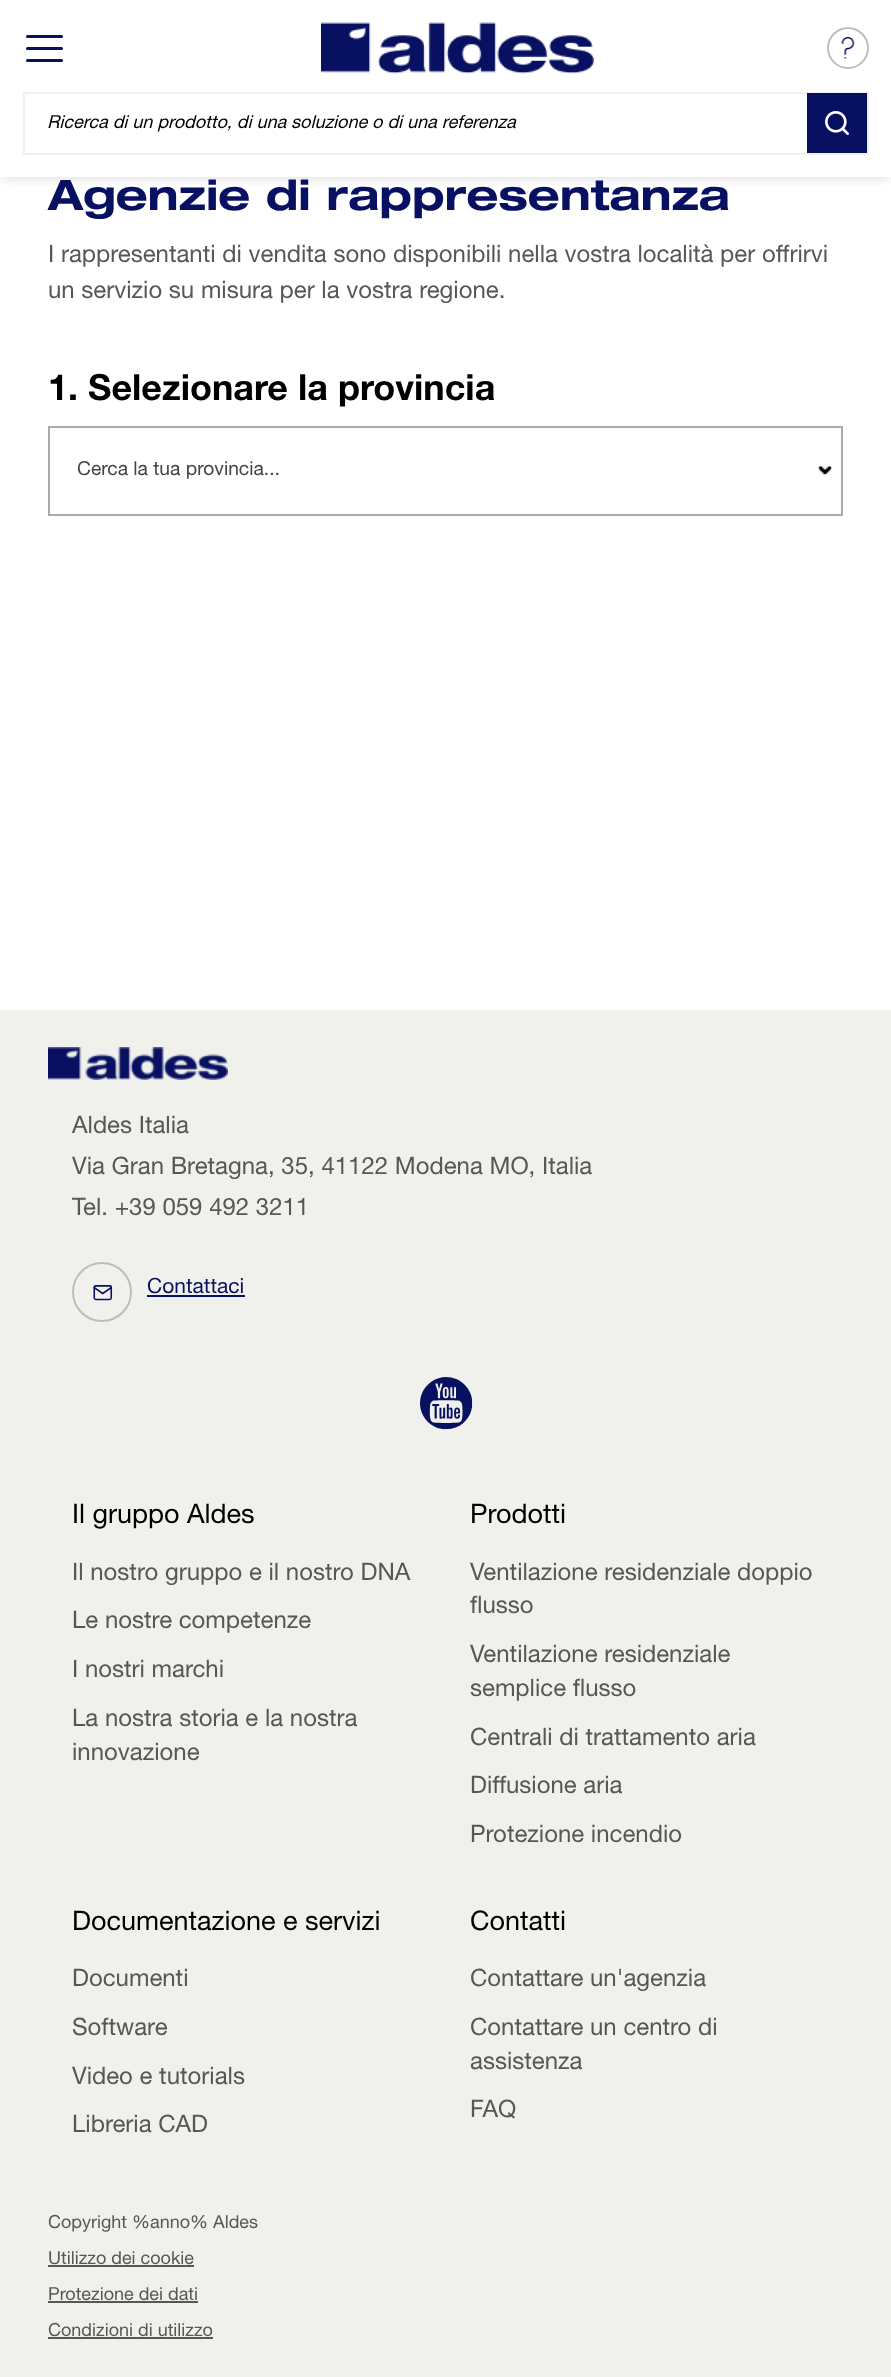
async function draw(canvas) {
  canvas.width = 891;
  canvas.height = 2377;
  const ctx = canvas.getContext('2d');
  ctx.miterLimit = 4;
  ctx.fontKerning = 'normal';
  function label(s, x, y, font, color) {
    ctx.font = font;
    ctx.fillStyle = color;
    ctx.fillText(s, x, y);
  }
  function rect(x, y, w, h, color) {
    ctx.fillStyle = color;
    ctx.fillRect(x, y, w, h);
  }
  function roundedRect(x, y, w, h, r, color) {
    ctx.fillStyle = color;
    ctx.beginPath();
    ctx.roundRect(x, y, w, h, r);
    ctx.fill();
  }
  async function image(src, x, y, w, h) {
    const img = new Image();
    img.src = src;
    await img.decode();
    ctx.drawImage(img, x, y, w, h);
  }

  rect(0, 0, 891, 2377, '#fff');
  ctx.save();
  ctx.beginPath();
  ctx.rect(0, 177, 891, 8);
  ctx.clip();
  ctx.fillStyle = '#00000026';
  ctx.filter = 'blur(7px)';
  ctx.beginPath();
  ctx.rect(0, 0, 891, 177);
  ctx.fill();
  ctx.filter = 'none';
  ctx.restore();
  roundedRect(26, 35, 37, 3, 1.5, '#081061');
  roundedRect(26, 47, 37, 3, 1.5, '#081061');
  roundedRect(26, 59, 37, 3, 1.5, '#081061');
  await image('assets/img1.png', 321, 22, 273, 52);
  ctx.beginPath();
  ctx.arc(848, 48, 20, 0, 2 * Math.PI);
  ctx.strokeStyle = '#bdbdbd';
  ctx.lineWidth = 2;
  ctx.stroke();
  await image('assets/img2.png', 841, 37, 14, 22);
  ctx.strokeStyle = '#f0f0ed';
  ctx.strokeRect(24, 93, 844, 61);
  label('Ricerca di un prodotto, di una soluzione o di una referenza', 47, 128, 'italic 18px Helvetica Neue', '#000');
  rect(807, 93, 60, 60, '#081061');
  await image('assets/img3.png', 825, 111, 24, 24);
  label('Agenzie di rappresentanza', 48, 210, 'bold 42px Helvetica Neue', '#081061');
  label('I rappresentanti di vendita sono disponibili nella vostra località per offrirvi', 48, 262, '24px Helvetica Neue', '#575756');
  label('un servizio su misura per la vostra regione.', 48, 298, '24px Helvetica Neue', '#575756');
  label('1. Selezionare la provincia', 48, 400, 'bold 36px "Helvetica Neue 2"', '#000');
  ctx.strokeStyle = '#aaa';
  ctx.strokeRect(49, 427, 793, 88);
  label('Cerca la tua provincia...', 77, 475, '19.25px Helvetica Neue', '#444');
  await image('assets/img4.png', 818, 466, 14, 9);
  rect(0, 1010, 891, 1367, '#f0f0ed');
  await image('assets/img5.png', 48, 1047, 180, 33);
  label('Aldes Italia', 72, 1133, '24px Helvetica Neue', '#575756');
  label('Via Gran Bretagna, 35, 41122 Modena MO, Italia', 72, 1174, '24px Helvetica Neue', '#575756');
  label('Tel. +39 059 492 3211', 72, 1215, '24px Helvetica Neue', '#575756');
  ctx.beginPath();
  ctx.arc(102, 1292, 29, 0, 2 * Math.PI);
  ctx.strokeStyle = '#bdbdbd';
  ctx.stroke();
  await image('assets/img6.png', 93, 1285, 20, 16);
  label('Contattaci', 147, 1293, '21px Helvetica Neue', '#081061');
  rect(147, 1295, 98, 2, '#081061');
  await image('assets/img7.png', 420, 1377, 53, 53);
  label('Il gruppo Aldes', 72, 1523, '27px Helvetica Neue', '#000');
  label('Il nostro gruppo e il nostro DNA', 72, 1580, '24px Helvetica Neue', '#575756');
  label('Le nostre competenze', 72, 1628, '24px Helvetica Neue', '#575756');
  label('I nostri marchi', 72, 1677, '24px Helvetica Neue', '#575756');
  label('La nostra storia e la nostra', 72, 1726, '24px Helvetica Neue', '#575756');
  label('innovazione', 72, 1760, '24px Helvetica Neue', '#575756');
  label('Prodotti', 470, 1523, '27px Helvetica Neue', '#000');
  label('Ventilazione residenziale doppio', 470, 1580, '24px Helvetica Neue', '#575756');
  label('flusso', 470, 1613, '24px Helvetica Neue', '#575756');
  label('Ventilazione residenziale', 470, 1662, '24px Helvetica Neue', '#575756');
  label('semplice flusso', 470, 1696, '24px Helvetica Neue', '#575756');
  label('Centrali di trattamento aria', 470, 1745, '24px Helvetica Neue', '#575756');
  label('Diffusione aria', 470, 1793, '24px Helvetica Neue', '#575756');
  label('Protezione incendio', 470, 1842, '24px Helvetica Neue', '#575756');
  label('Documentazione e servizi', 72, 1930, '27px Helvetica Neue', '#000');
  label('Documenti', 72, 1986, '24px Helvetica Neue', '#575756');
  label('Software', 72, 2035, '24px Helvetica Neue', '#575756');
  label('Video e tutorials', 72, 2084, '24px Helvetica Neue', '#575756');
  label('Libreria CAD', 72, 2132, '24px Helvetica Neue', '#575756');
  label('Contatti', 470, 1930, '27px Helvetica Neue', '#000');
  label('Contattare un\'agenzia', 470, 1986, '24px Helvetica Neue', '#575756');
  label('Contattare un centro di', 470, 2035, '24px Helvetica Neue', '#575756');
  label('assistenza', 470, 2069, '24px Helvetica Neue', '#575756');
  label('FAQ', 470, 2117, '24px Helvetica Neue', '#575756');
  label('Copyright %anno% Aldes', 48, 2228, '18px Helvetica Neue', '#575756');
  label('Utilizzo dei cookie', 48, 2264, '18px Helvetica Neue', '#575756');
  rect(48, 2265, 146, 2, '#575756');
  label('Protezione dei dati', 48, 2300, '18px Helvetica Neue', '#575756');
  rect(48, 2301, 150, 2, '#575756');
  label('Condizioni di utilizzo', 48, 2336, '18px Helvetica Neue', '#575756');
  rect(48, 2337, 165, 2, '#575756');
}

draw(document.querySelector('canvas'));
